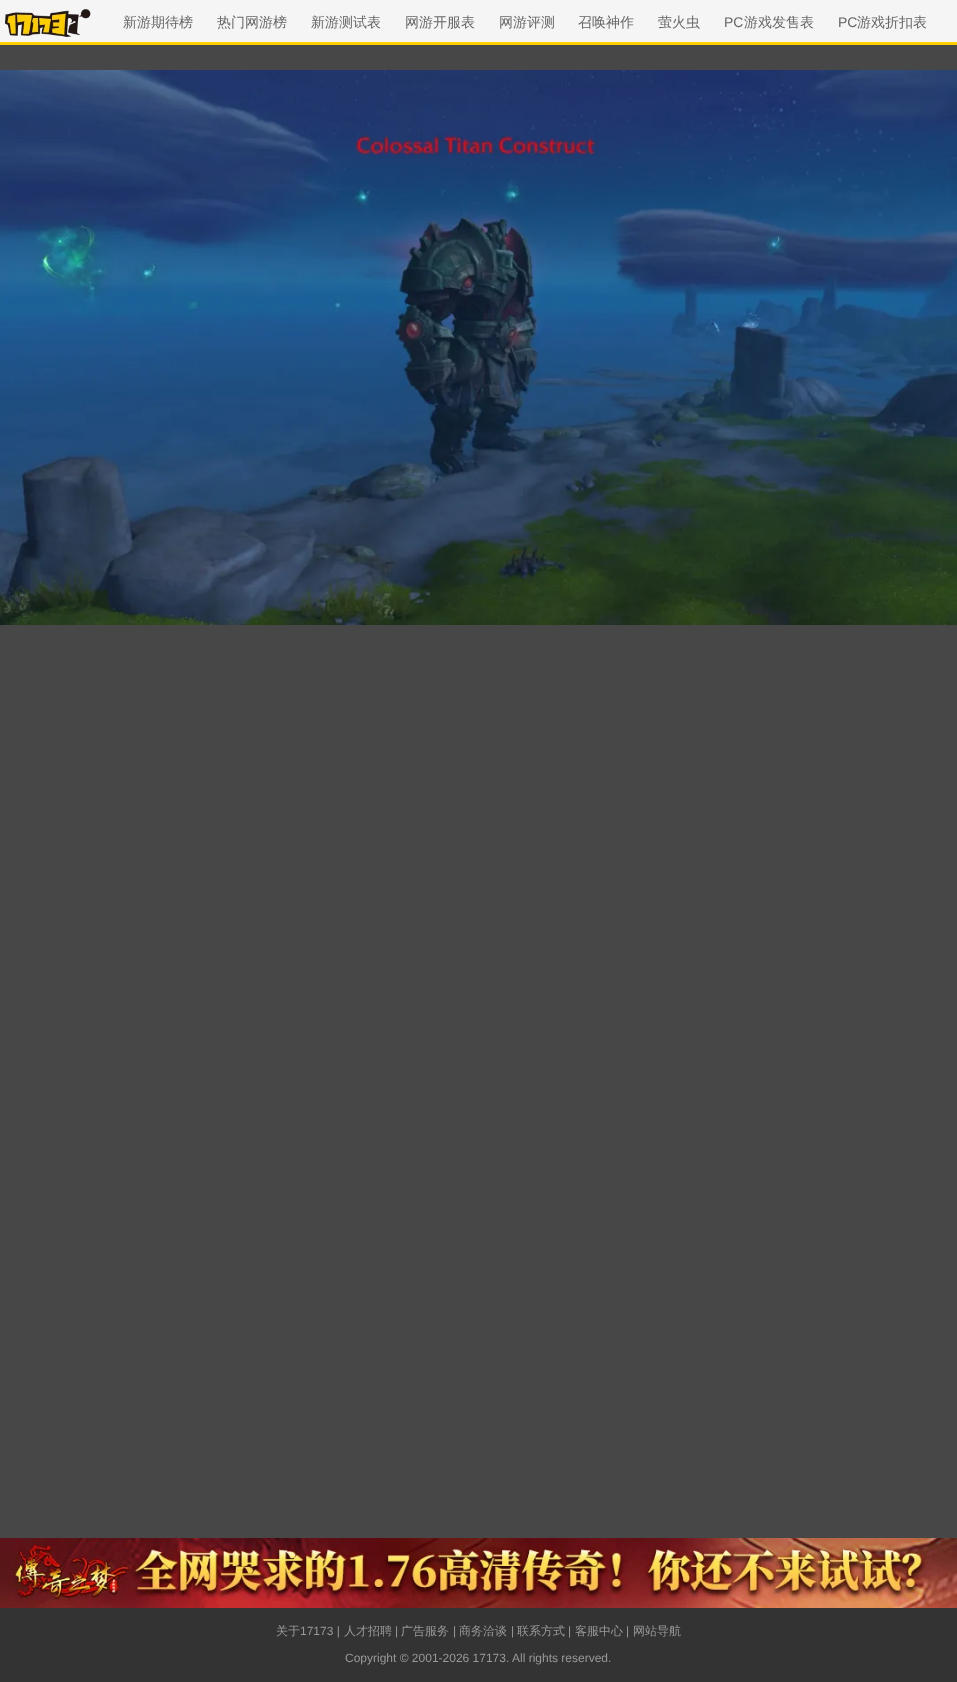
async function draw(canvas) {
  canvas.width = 957;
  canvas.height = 1682;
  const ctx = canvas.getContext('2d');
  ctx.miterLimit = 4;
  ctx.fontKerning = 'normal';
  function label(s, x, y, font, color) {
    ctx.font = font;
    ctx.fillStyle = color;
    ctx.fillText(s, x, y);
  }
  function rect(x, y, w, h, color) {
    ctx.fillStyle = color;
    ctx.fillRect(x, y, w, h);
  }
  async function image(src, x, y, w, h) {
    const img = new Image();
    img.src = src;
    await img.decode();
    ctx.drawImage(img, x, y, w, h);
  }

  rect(0, 0, 957, 1682, '#474747');
  rect(0, 0, 957, 42, '#f5f5f5');
  rect(0, 42, 957, 3, '#ffcd00');
  await image('assets/img1.png', 5, 9, 86, 28);
  label('新游期待榜', 123, 27, '500 14px WenQuanYi Zen Hei', '#666');
  label('热门网游榜', 217, 27, '500 14px WenQuanYi Zen Hei', '#666');
  label('新游测试表', 311, 27, '500 14px WenQuanYi Zen Hei', '#666');
  label('网游开服表', 405, 27, '500 14px WenQuanYi Zen Hei', '#666');
  label('网游评测', 499, 27, '500 14px WenQuanYi Zen Hei', '#666');
  label('召唤神作', 578, 27, '500 14px WenQuanYi Zen Hei', '#666');
  label('萤火虫', 658, 27, '500 14px WenQuanYi Zen Hei', '#666');
  label('PC', 724, 27, '14px Liberation Sans', '#666');
  label('游戏发售表', 744, 27, '500 14px WenQuanYi Zen Hei', '#666');
  label('PC', 838, 27, '14px Liberation Sans', '#666');
  label('游戏折扣表', 857, 27, '500 14px WenQuanYi Zen Hei', '#666');
  await image('assets/img2.png', 0, 70, 957, 555);
  await image('assets/img3.png', 0, 1538, 957, 70);
  rect(0, 1608, 957, 74, '#333');
  label('关于', 276, 1635, '500 12px WenQuanYi Zen Hei', '#999');
  label('17173 |', 300, 1635, '12px Liberation Sans', '#999');
  label('人才招聘', 344, 1635, '500 12px WenQuanYi Zen Hei', '#999');
  label('|', 395, 1635, '12px Liberation Sans', '#999');
  label('广告服务', 401, 1635, '500 12px WenQuanYi Zen Hei', '#999');
  label('|', 453, 1635, '12px Liberation Sans', '#999');
  label('商务洽谈', 459, 1635, '500 12px WenQuanYi Zen Hei', '#999');
  label('|', 511, 1635, '12px Liberation Sans', '#999');
  label('联系方式', 517, 1635, '500 12px WenQuanYi Zen Hei', '#999');
  label('|', 568, 1635, '12px Liberation Sans', '#999');
  label('客服中心', 575, 1635, '500 12px WenQuanYi Zen Hei', '#999');
  label('|', 626, 1635, '12px Liberation Sans', '#999');
  label('网站导航', 633, 1635, '500 12px WenQuanYi Zen Hei', '#999');
  label('Copyright © 2001-2026 17173. All rights reserved.', 345, 1662, '12px Liberation Sans', '#999');
}

draw(document.querySelector('canvas'));
